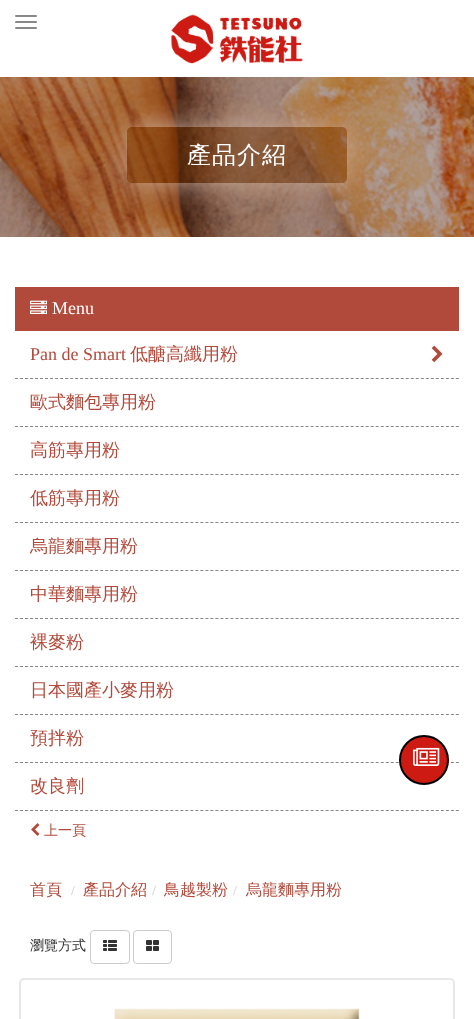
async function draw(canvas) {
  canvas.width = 474;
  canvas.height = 1019;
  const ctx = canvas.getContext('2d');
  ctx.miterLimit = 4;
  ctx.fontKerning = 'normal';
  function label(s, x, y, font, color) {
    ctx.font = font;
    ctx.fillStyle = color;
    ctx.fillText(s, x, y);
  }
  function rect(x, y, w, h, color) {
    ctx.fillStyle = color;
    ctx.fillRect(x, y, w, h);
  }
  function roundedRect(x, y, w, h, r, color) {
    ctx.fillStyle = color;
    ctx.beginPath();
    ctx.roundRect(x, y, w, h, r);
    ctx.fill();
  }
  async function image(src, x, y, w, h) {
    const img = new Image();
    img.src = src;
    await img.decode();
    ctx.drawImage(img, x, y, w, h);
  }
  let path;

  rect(0, 0, 474, 1019, '#fff');
  roundedRect(15, 15, 22, 2, 1, '#888');
  roundedRect(15, 21, 22, 2, 1, '#888');
  roundedRect(15, 27, 22, 2, 1, '#888');
  await image('assets/img1.png', 170, 14, 133, 50);
  await image('assets/img2.png', 0, 77, 474, 160);
  ctx.save();
  path = new Path2D('M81 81H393V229H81ZM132 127H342C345 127 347 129 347 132V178C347 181 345 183 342 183H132C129 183 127 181 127 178V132C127 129 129 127 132 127Z');
  ctx.clip(path, 'evenodd');
  ctx.fillStyle = '#ceae9a';
  ctx.filter = 'blur(15px)';
  ctx.beginPath();
  ctx.roundRect(127, 127, 220, 56, 5);
  ctx.fill();
  ctx.filter = 'none';
  ctx.restore();
  roundedRect(127, 127, 220, 56, 5, '#7a350063');
  ctx.letterSpacing = '1px';
  label('產品介紹', 187, 163, '500 24px WenQuanYi Zen Hei', '#fff');
  rect(15, 287, 444, 44, '#b24a3b');
  await image('assets/img3.png', 30, 300, 17, 14);
  ctx.letterSpacing = '0px';
  label('Menu', 52, 314, '18px Liberation Serif', '#fff');
  path = new Path2D('M15 378.5H459');
  ctx.strokeStyle = '#878787';
  ctx.setLineDash([3, 2.01]);
  ctx.stroke(path);
  label('Pan de Smart', 30, 360, '18px Liberation Serif', '#b24a3b');
  label('低醣高纖用粉', 130, 360, '500 18px WenQuanYi Zen Hei', '#b24a3b');
  await image('assets/img4.png', 431, 345, 12, 17);
  path = new Path2D('M15 426.5H459');
  ctx.stroke(path);
  label('歐式麵包專用粉', 30, 408, '500 18px WenQuanYi Zen Hei', '#b24a3b');
  path = new Path2D('M15 474.5H459');
  ctx.stroke(path);
  label('高筋專用粉', 30, 456, '500 18px WenQuanYi Zen Hei', '#b24a3b');
  path = new Path2D('M15 522.5H459');
  ctx.stroke(path);
  label('低筋專用粉', 30, 504, '500 18px WenQuanYi Zen Hei', '#b24a3b');
  path = new Path2D('M15 570.5H459');
  ctx.stroke(path);
  label('烏龍麵專用粉', 30, 552, '500 18px WenQuanYi Zen Hei', '#b24a3b');
  path = new Path2D('M15 618.5H459');
  ctx.stroke(path);
  label('中華麵專用粉', 30, 600, '500 18px WenQuanYi Zen Hei', '#b24a3b');
  path = new Path2D('M15 666.5H459');
  ctx.stroke(path);
  label('裸麥粉', 30, 648, '500 18px WenQuanYi Zen Hei', '#b24a3b');
  path = new Path2D('M15 714.5H459');
  ctx.stroke(path);
  label('日本國產小麥用粉', 30, 696, '500 18px WenQuanYi Zen Hei', '#b24a3b');
  path = new Path2D('M15 762.5H459');
  ctx.stroke(path);
  label('預拌粉', 30, 744, '500 18px WenQuanYi Zen Hei', '#b24a3b');
  path = new Path2D('M15 810.5H459');
  ctx.stroke(path);
  label('改良劑', 30, 792, '500 18px WenQuanYi Zen Hei', '#b24a3b');
  await image('assets/img5.png', 31, 823, 9, 13);
  label('上一頁', 44, 835, '500 14px WenQuanYi Zen Hei', '#b24a3b');
  label('首頁', 30, 895, '500 16px WenQuanYi Zen Hei', '#b24a3b');
  label('/', 71, 895, '14px Liberation Serif', '#ccc');
  label('產品介紹', 83, 895, '500 16px WenQuanYi Zen Hei', '#b24a3b');
  label('/', 152, 895, '14px Liberation Serif', '#ccc');
  label('鳥越製粉', 164, 895, '500 16px WenQuanYi Zen Hei', '#b24a3b');
  label('/', 233, 895, '14px Liberation Serif', '#ccc');
  label('烏龍麵專用粉', 246, 895, '500 16px WenQuanYi Zen Hei', '#b24a3b');
  label('瀏覽方式', 30, 950, '500 14px WenQuanYi Zen Hei', '#333');
  ctx.beginPath();
  ctx.roundRect(90.5, 930.5, 39, 33, 3.5);
  ctx.strokeStyle = '#ccc';
  ctx.setLineDash([]);
  ctx.stroke();
  await image('assets/img6.png', 103, 940, 14, 11);
  ctx.beginPath();
  ctx.roundRect(133.5, 930.5, 38, 33, 3.5);
  ctx.stroke();
  await image('assets/img7.png', 146, 940, 13, 11);
  ctx.beginPath();
  ctx.roundRect(20, 979, 434, 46, 4);
  ctx.strokeStyle = '#e8e8e8';
  ctx.lineWidth = 2;
  ctx.stroke();
  await image('assets/img8.png', 114, 1008, 246, 11);
  ctx.fillStyle = '#cd1a13';
  ctx.beginPath();
  ctx.arc(424, 760, 24, 0, 2 * Math.PI);
  ctx.fill();
  ctx.strokeStyle = '#000';
  ctx.stroke();
  await image('assets/img9.png', 413, 747, 27, 19);
}

draw(document.querySelector('canvas'));
